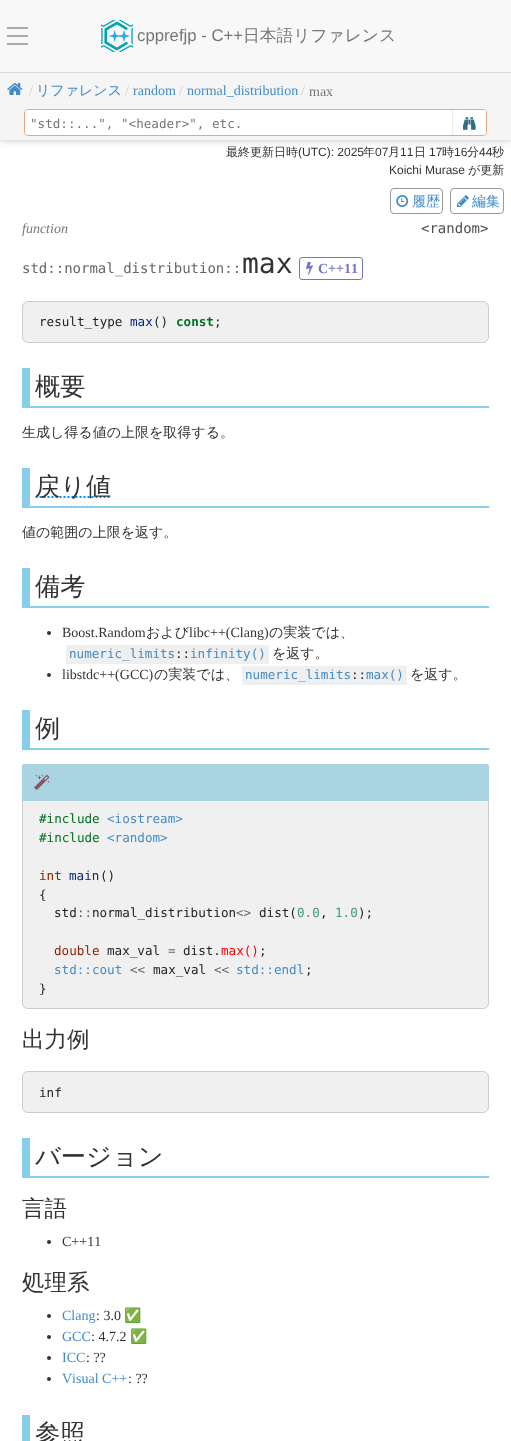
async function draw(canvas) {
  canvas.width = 511;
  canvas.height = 1441;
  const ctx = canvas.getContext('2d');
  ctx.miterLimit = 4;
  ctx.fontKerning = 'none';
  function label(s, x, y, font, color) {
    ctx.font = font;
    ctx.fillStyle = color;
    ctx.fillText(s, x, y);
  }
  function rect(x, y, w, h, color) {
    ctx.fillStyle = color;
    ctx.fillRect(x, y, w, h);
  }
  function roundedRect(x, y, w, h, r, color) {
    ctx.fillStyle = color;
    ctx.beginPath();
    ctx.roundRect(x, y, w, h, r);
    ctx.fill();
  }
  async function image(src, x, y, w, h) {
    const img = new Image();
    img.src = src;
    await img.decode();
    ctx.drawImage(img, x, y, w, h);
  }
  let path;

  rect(0, 0, 511, 1441, '#fff');
  ctx.fillStyle = '#14141499';
  ctx.filter = 'blur(6px)';
  ctx.beginPath();
  ctx.rect(0, 69, 511, 67);
  ctx.fill();
  ctx.filter = 'none';
  rect(0, 0, 511, 72, '#f8f8f8');
  rect(0, 72, 511, 1, '#d0dce0');
  rect(7, 27, 21, 2, '#aaa');
  rect(7, 35, 21, 2, '#aaa');
  rect(7, 43, 21, 2, '#aaa');
  await image('assets/img1.png', 101, 20, 32, 32);
  label('cpprefjp - C++', 137, 41, '16.75px Liberation Sans', '#777');
  label('日本語リファレンス', 243, 41, '500 16.75px WenQuanYi Zen Hei', '#777');
  rect(0, 73, 511, 67, '#f5f5f5');
  await image('assets/img2.png', 7, 83, 16, 12);
  label('/', 29, 95, '14px Liberation Serif', '#ccc');
  label('リファレンス', 36, 95, '500 14px WenQuanYi Zen Hei', '#428bca');
  label('/', 125, 95, '14px Liberation Serif', '#ccc');
  label('random', 133, 95, '14px Liberation Serif', '#428bca');
  label('/', 179, 95, '14px Liberation Serif', '#ccc');
  label('normal_distribution', 187, 95, '14px Liberation Serif', '#428bca');
  label('/', 301, 95, '14px Liberation Serif', '#ccc');
  label('max', 309, 96, '14px Liberation Serif', '#777');
  ctx.beginPath();
  ctx.roundRect(24.5, 109.5, 462, 26, 3.5);
  ctx.strokeStyle = '#eba487';
  ctx.stroke();
  roundedRect(25, 110, 461, 25, 3, '#fff');
  label('"std::...", "<header>", etc.', 30, 128, '12.6px DejaVu Sans Mono', '#777');
  ctx.fillStyle = '#fff';
  ctx.beginPath();
  ctx.roundRect(452, 110, 34, 25, [0, 3, 3, 0]);
  ctx.fill();
  path = new Path2D('M452.5 110V137');
  ctx.strokeStyle = '#ddd';
  ctx.setLineDash([1, 1]);
  ctx.stroke(path);
  await image('assets/img3.png', 463, 117, 13, 13);
  label('最終更新日時', 226, 156, '500 12px WenQuanYi Zen Hei', '#333');
  label('(UTC): 2025', 298, 156, '12px Liberation Sans', '#333');
  label('年', 363, 156, '500 12px WenQuanYi Zen Hei', '#333');
  label('07', 375, 156, '12px Liberation Sans', '#333');
  label('月', 388, 156, '500 12px WenQuanYi Zen Hei', '#333');
  label('11', 400, 156, '12px Liberation Sans', '#333');
  label('日', 414, 156, '500 12px WenQuanYi Zen Hei', '#333');
  label('17', 429, 156, '12px Liberation Sans', '#333');
  label('時', 442, 156, '500 12px WenQuanYi Zen Hei', '#333');
  label('16', 454, 156, '12px Liberation Sans', '#333');
  label('分', 467, 156, '500 12px WenQuanYi Zen Hei', '#333');
  label('44', 479, 156, '12px Liberation Sans', '#333');
  label('秒', 492, 156, '500 12px WenQuanYi Zen Hei', '#333');
  label('Koichi Murase', 389, 174, '12px Liberation Sans', '#333');
  label('が更新', 468, 174, '500 12px WenQuanYi Zen Hei', '#333');
  ctx.beginPath();
  ctx.roundRect(390.5, 188.5, 52, 25, 3.5);
  ctx.strokeStyle = '#999';
  ctx.setLineDash([]);
  ctx.stroke();
  await image('assets/img4.png', 396, 195, 13, 12);
  label('履歴', 412, 206, '500 14px WenQuanYi Zen Hei', '#428bca');
  ctx.beginPath();
  ctx.roundRect(450.5, 188.5, 53, 25, 3.5);
  ctx.stroke();
  await image('assets/img5.png', 457, 195, 12, 12);
  label('編集', 472, 206, '500 14px WenQuanYi Zen Hei', '#428bca');
  label('function', 22, 233, 'italic 14px Liberation Serif', '#777');
  label('<random>', 421, 233, '14px DejaVu Sans Mono', '#4e4e4e');
  label('std::normal_distribution::', 22, 273, '14px DejaVu Sans Mono', '#666');
  label('max', 242, 273, '28px DejaVu Sans Mono', '#333');
  ctx.beginPath();
  ctx.roundRect(299.5, 257.5, 63, 22, 2.5);
  ctx.strokeStyle = '#7473ca';
  ctx.stroke();
  await image('assets/img6.png', 306, 262, 7, 13);
  label('C++11', 318, 273, 'bold 14px Liberation Serif', '#7473ca');
  ctx.fillStyle = '#f0f0f0';
  ctx.beginPath();
  ctx.roundRect(22.5, 301.5, 466, 41, 5.5);
  ctx.fill();
  ctx.strokeStyle = '#ccc';
  ctx.stroke();
  label('result_type', 39, 326, '12.6px DejaVu Sans Mono', '#232323');
  label('max', 130, 326, '12.6px DejaVu Sans Mono', '#06287e');
  label('()', 153, 326, '12.6px DejaVu Sans Mono', '#232323');
  label('const', 176, 326, 'bold 12.6px DejaVu Sans Mono', '#007020');
  label(';', 214, 326, '12.6px DejaVu Sans Mono', '#232323');
  rect(22, 406, 467, 2, '#87ceeb');
  rect(22, 368, 8, 40, '#87ceeb');
  label('概要', 35, 395, '500 25.25px WenQuanYi Zen Hei', '#333');
  label('生成し得る値の上限を取得する。', 22, 437, '500 14px WenQuanYi Zen Hei', '#333');
  rect(22, 506, 467, 2, '#87ceeb');
  rect(22, 468, 8, 40, '#87ceeb');
  path = new Path2D('M35.5 497H111.5');
  ctx.strokeStyle = '#08f';
  ctx.lineWidth = 2;
  ctx.setLineDash([2, 2]);
  ctx.stroke(path);
  label('戻り値', 35, 495, '500 25.25px WenQuanYi Zen Hei', '#333');
  label('値の範囲の上限を返す。', 22, 537, '500 14px WenQuanYi Zen Hei', '#333');
  rect(22, 606, 467, 2, '#87ceeb');
  rect(22, 568, 8, 40, '#87ceeb');
  label('備考', 35, 595, '500 25.25px WenQuanYi Zen Hei', '#333');
  ctx.beginPath();
  ctx.arc(49, 633, 2, 0, 2 * Math.PI);
  ctx.fill();
  label('Boost.Random', 62, 637, '14px Liberation Serif', '#333');
  label('および', 146, 637, '500 14px WenQuanYi Zen Hei', '#333');
  label('libc++(Clang)', 189, 637, '14px Liberation Serif', '#333');
  label('の実装では、', 269, 637, '500 14px WenQuanYi Zen Hei', '#333');
  rect(66, 645, 203, 19, '#efefef');
  label('numeric_limits', 69, 658, '12.6px DejaVu Sans Mono', '#428bca');
  label('::', 175, 658, '12.6px DejaVu Sans Mono', '#232323');
  label('infinity()', 190, 658, '12.6px DejaVu Sans Mono', '#428bca');
  label('を返す。', 272, 658, '500 14px WenQuanYi Zen Hei', '#333');
  ctx.beginPath();
  ctx.arc(49, 675, 2, 0, 2 * Math.PI);
  ctx.fill();
  label('libstdc++(GCC)', 62, 679, '14px Liberation Serif', '#333');
  label('の実装では、', 154, 679, '500 14px WenQuanYi Zen Hei', '#333');
  rect(242, 666, 165, 19, '#efefef');
  label('numeric_limits', 245, 679, '12.6px DejaVu Sans Mono', '#428bca');
  label('::', 351, 679, '12.6px DejaVu Sans Mono', '#232323');
  label('max()', 366, 679, '12.6px DejaVu Sans Mono', '#428bca');
  label('を返す。', 410, 679, '500 14px WenQuanYi Zen Hei', '#333');
  rect(22, 748, 467, 2, '#87ceeb');
  rect(22, 710, 8, 40, '#87ceeb');
  label('例', 35, 737, '500 25.25px WenQuanYi Zen Hei', '#333');
  ctx.fillStyle = '#a9d4e2';
  ctx.beginPath();
  ctx.roundRect(22, 764, 467, 37, [2, 2, 0, 0]);
  ctx.fill();
  await image('assets/img7.png', 34, 774, 16, 16);
  ctx.fillStyle = '#f0f0f0';
  ctx.beginPath();
  ctx.roundRect(22, 801, 467, 208, [0, 0, 6, 6]);
  ctx.fill();
  ctx.fillStyle = '#ccc';
  path = new Path2D('M22 801H489V1003C489 1006 486 1009 483 1009H28C25 1009 22 1006 22 1003ZM23 801H488V1003C488 1006 486 1008 483 1008H28C25 1008 23 1006 23 1003Z');
  ctx.fill(path, 'evenodd');
  label('#include', 39, 823, '12.6px DejaVu Sans Mono', '#007020');
  label('<iostream>', 107, 823, '12.6px DejaVu Sans Mono', '#428bca');
  label('#include', 39, 842, '12.6px DejaVu Sans Mono', '#007020');
  label('<random>', 107, 842, '12.6px DejaVu Sans Mono', '#428bca');
  label('int', 39, 880, '12.6px DejaVu Sans Mono', '#902000');
  label('main', 69, 880, '12.6px DejaVu Sans Mono', '#06287e');
  label('()', 100, 880, '12.6px DejaVu Sans Mono', '#232323');
  label('{', 39, 899, '12.6px DejaVu Sans Mono', '#232323');
  label('std', 54, 917, '12.6px DejaVu Sans Mono', '#232323');
  label('::', 77, 917, '12.6px DejaVu Sans Mono', '#666');
  label('normal_distribution', 92, 917, '12.6px DejaVu Sans Mono', '#232323');
  label('<>', 236, 917, '12.6px DejaVu Sans Mono', '#666');
  label('dist(', 259, 917, '12.6px DejaVu Sans Mono', '#232323');
  label('0.0', 297, 917, '12.6px DejaVu Sans Mono', '#40a070');
  label(',', 320, 917, '12.6px DejaVu Sans Mono', '#232323');
  label('1.0', 335, 917, '12.6px DejaVu Sans Mono', '#40a070');
  label(');', 358, 917, '12.6px DejaVu Sans Mono', '#232323');
  label('double', 54, 955, '12.6px DejaVu Sans Mono', '#902000');
  label('max_val', 107, 955, '12.6px DejaVu Sans Mono', '#232323');
  label('=', 168, 955, '12.6px DejaVu Sans Mono', '#666');
  label('dist.', 183, 955, '12.6px DejaVu Sans Mono', '#232323');
  label('max()', 221, 955, '12.6px DejaVu Sans Mono', '#f00');
  label(';', 259, 955, '12.6px DejaVu Sans Mono', '#232323');
  label('std::cout', 54, 974, '12.6px DejaVu Sans Mono', '#428bca');
  label('<<', 130, 974, '12.6px DejaVu Sans Mono', '#666');
  label('max_val', 153, 974, '12.6px DejaVu Sans Mono', '#232323');
  label('<<', 214, 974, '12.6px DejaVu Sans Mono', '#666');
  label('std::endl', 236, 974, '12.6px DejaVu Sans Mono', '#428bca');
  label(';', 305, 974, '12.6px DejaVu Sans Mono', '#232323');
  label('}', 39, 993, '12.6px DejaVu Sans Mono', '#232323');
  label('出力例', 22, 1047, '500 22.5px WenQuanYi Zen Hei', '#333');
  ctx.fillStyle = '#f0f0f0';
  ctx.beginPath();
  ctx.roundRect(22.5, 1071.5, 466, 41, 5.5);
  ctx.fill();
  ctx.strokeStyle = '#ccc';
  ctx.lineWidth = 1;
  ctx.setLineDash([]);
  ctx.stroke();
  label('inf', 39, 1097, '12.6px DejaVu Sans Mono', '#232323');
  rect(22, 1176, 467, 2, '#87ceeb');
  rect(22, 1138, 8, 40, '#87ceeb');
  label('バージョン', 35, 1165, '500 25.25px WenQuanYi Zen Hei', '#333');
  label('言語', 22, 1216, '500 22.5px WenQuanYi Zen Hei', '#333');
  ctx.beginPath();
  ctx.arc(49, 1242, 2, 0, 2 * Math.PI);
  ctx.fill();
  label('C++11', 62, 1246, '14px Liberation Serif', '#333');
  label('処理系', 22, 1290, '500 22.5px WenQuanYi Zen Hei', '#333');
  ctx.beginPath();
  ctx.arc(49, 1316, 2, 0, 2 * Math.PI);
  ctx.fill();
  label('Clang', 62, 1320, '14px Liberation Serif', '#428bca');
  label(': 3.0', 96, 1320, '14px Liberation Serif', '#333');
  label('✅', 124, 1320, '14px Noto Color Emoji', '#333');
  ctx.beginPath();
  ctx.arc(49, 1337, 2, 0, 2 * Math.PI);
  ctx.fill();
  label('GCC', 62, 1341, '14px Liberation Serif', '#428bca');
  label(': 4.7.2', 91, 1341, '14px Liberation Serif', '#333');
  label('✅', 130, 1341, '14px Noto Color Emoji', '#333');
  ctx.beginPath();
  ctx.arc(49, 1358, 2, 0, 2 * Math.PI);
  ctx.fill();
  label('ICC', 62, 1362, '14px Liberation Serif', '#428bca');
  label(': ??', 86, 1362, '14px Liberation Serif', '#333');
  ctx.beginPath();
  ctx.arc(49, 1379, 2, 0, 2 * Math.PI);
  ctx.fill();
  label('Visual C++', 62, 1383, '14px Liberation Serif', '#428bca');
  label(': ??', 128, 1383, '14px Liberation Serif', '#333');
  rect(22, 1415, 8, 26, '#87ceeb');
  label('参照', 35, 1442, '500 25.25px WenQuanYi Zen Hei', '#333');
}

draw(document.querySelector('canvas'));
